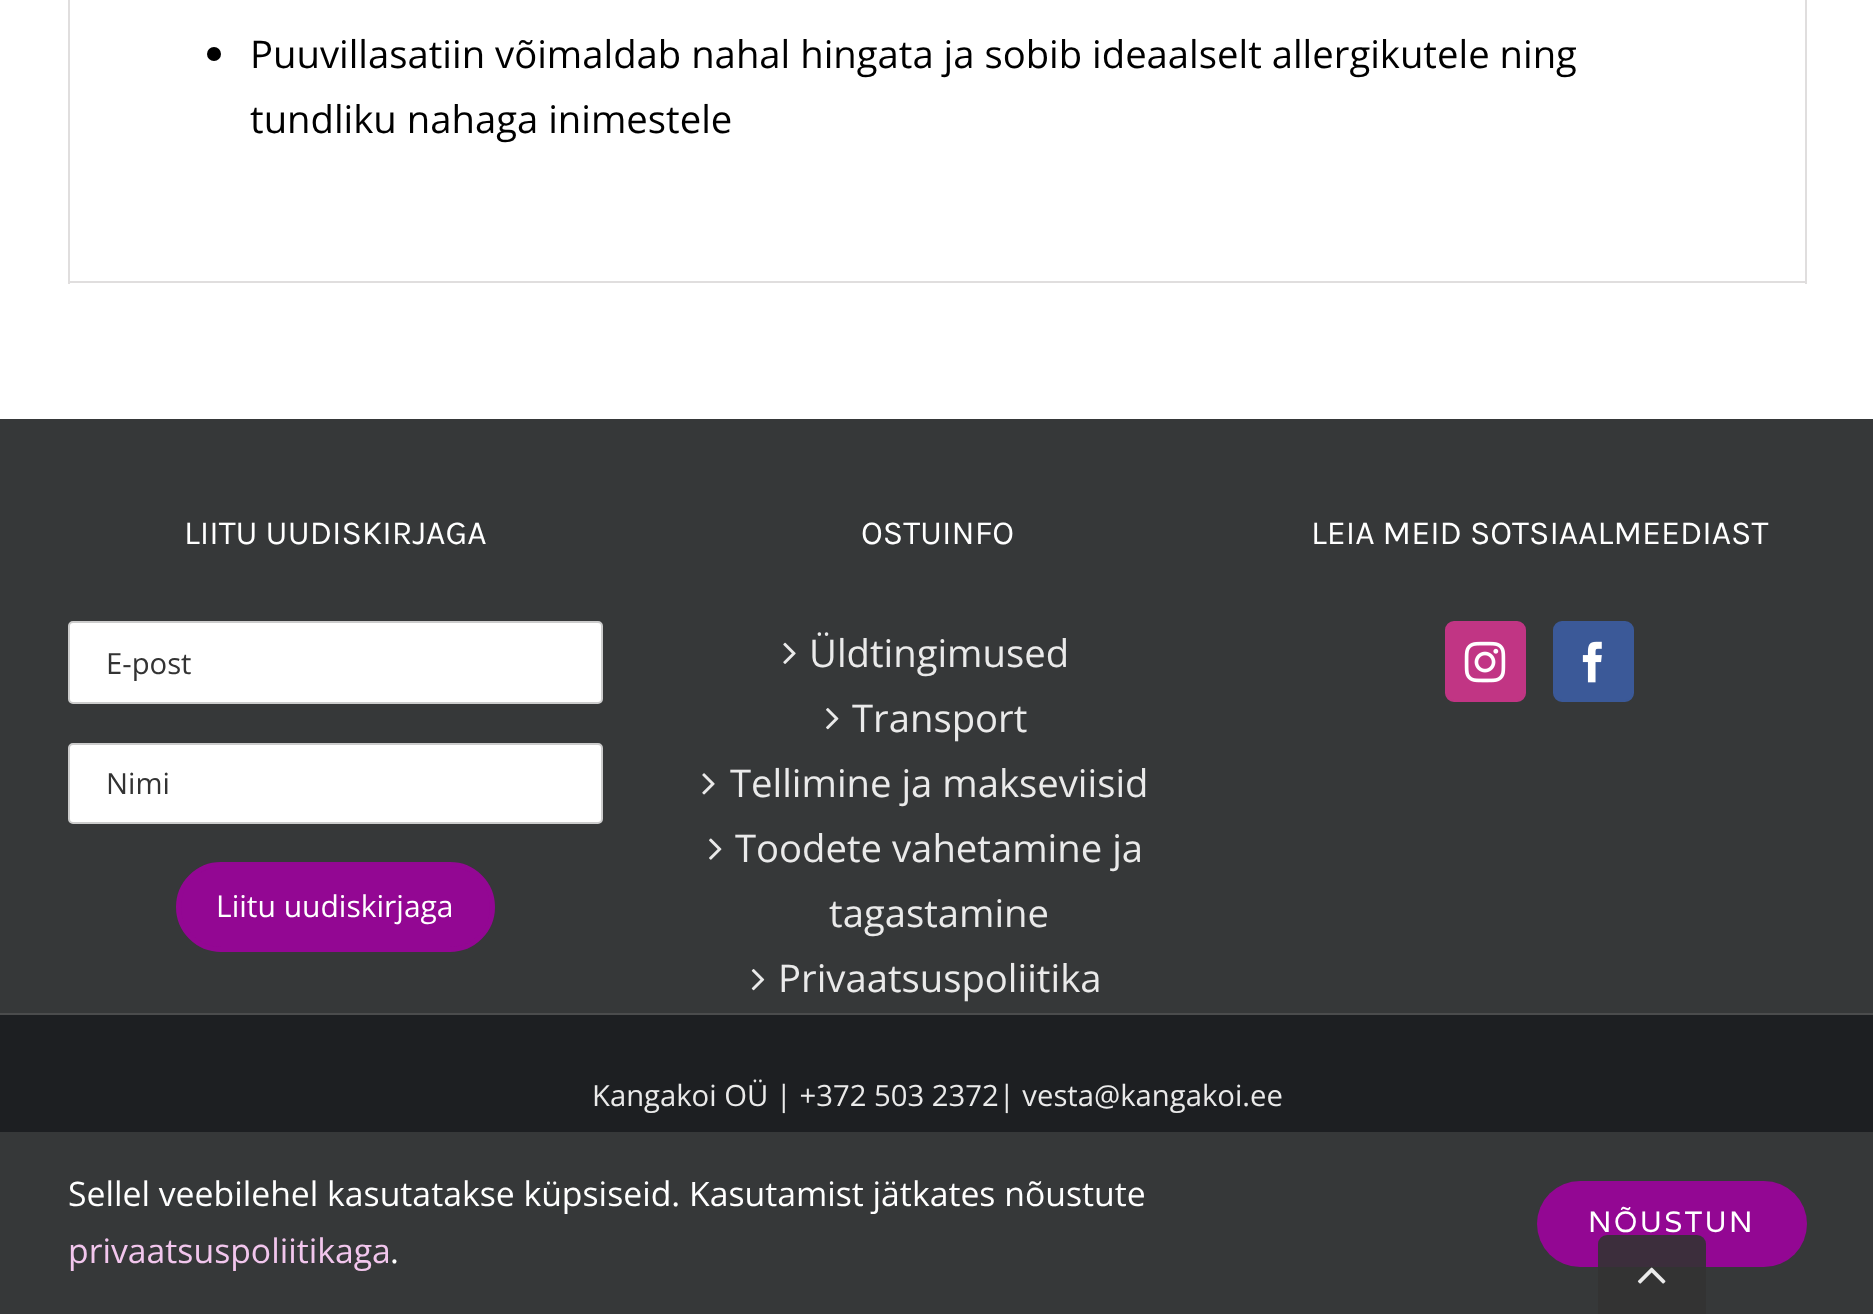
async function draw(canvas) {
  canvas.width = 1873;
  canvas.height = 1314;
  const ctx = canvas.getContext('2d');
  ctx.miterLimit = 4;
  ctx.fontKerning = 'normal';
  function label(s, x, y, font, color) {
    ctx.font = font;
    ctx.fillStyle = color;
    ctx.fillText(s, x, y);
  }
  function rect(x, y, w, h, color) {
    ctx.fillStyle = color;
    ctx.fillRect(x, y, w, h);
  }
  function roundedRect(x, y, w, h, r, color) {
    ctx.fillStyle = color;
    ctx.beginPath();
    ctx.roundRect(x, y, w, h, r);
    ctx.fill();
  }
  async function image(src, x, y, w, h) {
    const img = new Image();
    img.src = src;
    await img.decode();
    ctx.drawImage(img, x, y, w, h);
  }

  rect(0, 0, 1873, 1314, '#fff');
  rect(1805, 0, 2, 284, '#e0dede');
  rect(68, 281, 1739, 2, '#e0dede');
  rect(68, 0, 2, 284, '#e0dede');
  ctx.fillStyle = '#000';
  ctx.beginPath();
  ctx.arc(214, 54, 7, 0, 2 * Math.PI);
  ctx.fill();
  label('Puuvillasatiin võimaldab nahal hingata ja sobib ideaalselt allergikutele ning', 250, 68, '38.25px Open Sans', '#000');
  label('tundliku nahaga inimestele', 250, 133, '38.25px Open Sans', '#000');
  rect(0, 419, 1873, 594, '#363839');
  label('LIITU UUDISKIRJAGA', 184, 544, '33.75px Karla', '#fff');
  ctx.beginPath();
  ctx.roundRect(69, 622, 533, 81, 4);
  ctx.fill();
  ctx.strokeStyle = '#ccc';
  ctx.lineWidth = 2;
  ctx.stroke();
  label('E-post', 106, 674, '29.25px Open Sans', '#333');
  ctx.fillStyle = '#fff';
  ctx.beginPath();
  ctx.roundRect(69, 744, 533, 79, 4);
  ctx.fill();
  ctx.stroke();
  label('Nimi', 106, 794, '29.25px Open Sans', '#333');
  ctx.fillStyle = '#930793';
  ctx.beginPath();
  ctx.roundRect(178.5, 864.5, 314, 85, 42.5);
  ctx.fill();
  ctx.strokeStyle = '#930793';
  ctx.lineWidth = 5;
  ctx.stroke();
  label('Liitu uudiskirjaga', 216, 917, '30px Open Sans', '#fff');
  label('OSTUINFO', 861, 544, '33.75px Karla', '#fff');
  await image('assets/img1.png', 783, 642, 13, 22);
  label('Üldtingimused', 809, 667, '38.25px Open Sans', '#eaeaea');
  await image('assets/img2.png', 826, 708, 13, 22);
  label('Transport', 852, 732, '38.25px Open Sans', '#eaeaea');
  await image('assets/img3.png', 702, 773, 13, 22);
  label('Tellimine ja makseviisid', 730, 797, '38.25px Open Sans', '#eaeaea');
  await image('assets/img4.png', 709, 838, 13, 22);
  label('Toodete vahetamine ja', 735, 862, '38.25px Open Sans', '#eaeaea');
  label('tagastamine', 829, 927, '38.25px Open Sans', '#eaeaea');
  await image('assets/img5.png', 751, 969, 14, 22);
  label('Privaatsuspoliitika', 778, 992, '38.25px Open Sans', '#eaeaea');
  label('LEIA MEID SOTSIAALMEEDIAST', 1311, 544, '33.75px Karla', '#fff');
  ctx.fillStyle = '#c13584';
  ctx.beginPath();
  ctx.roundRect(1446, 622, 79, 79, 8);
  ctx.fill();
  ctx.strokeStyle = '#c13584';
  ctx.lineWidth = 2;
  ctx.stroke();
  await image('assets/img6.png', 1464, 641, 42, 42);
  ctx.fillStyle = '#3b5998';
  ctx.beginPath();
  ctx.roundRect(1554, 622, 79, 79, 8);
  ctx.fill();
  ctx.strokeStyle = '#3b5998';
  ctx.stroke();
  await image('assets/img7.png', 1582, 641, 20, 42);
  rect(0, 1015, 1873, 117, '#1d1f22');
  rect(0, 1013, 1873, 2, '#4b4c4d');
  label('Kangakoi OÜ | +372 503 2372| vesta@kangakoi.ee', 592, 1106, '29.25px Open Sans', '#eaeaea');
  rect(0, 1132, 1873, 182, '#363839');
  label('Sellel veebilehel kasutatakse küpsiseid. Kasutamist jätkates nõustute', 68, 1206, '33.75px Open Sans', '#fff');
  label('privaatsuspoliitikaga', 68, 1263, '33.75px Open Sans', '#f2c6ed');
  label('.', 390, 1263, '33.75px Open Sans', '#fff');
  roundedRect(1537, 1181, 270, 86, 43, '#930793');
  ctx.letterSpacing = '2.25px';
  label('NÕUSTUN', 1588, 1232, '29.25px Varela', '#fff');
  ctx.fillStyle = '#333333e6';
  ctx.beginPath();
  ctx.roundRect(1598, 1235, 108, 79, [9, 9, 0, 0]);
  ctx.fill();
  await image('assets/img8.png', 1637, 1267, 29, 17);
}

draw(document.querySelector('canvas'));
